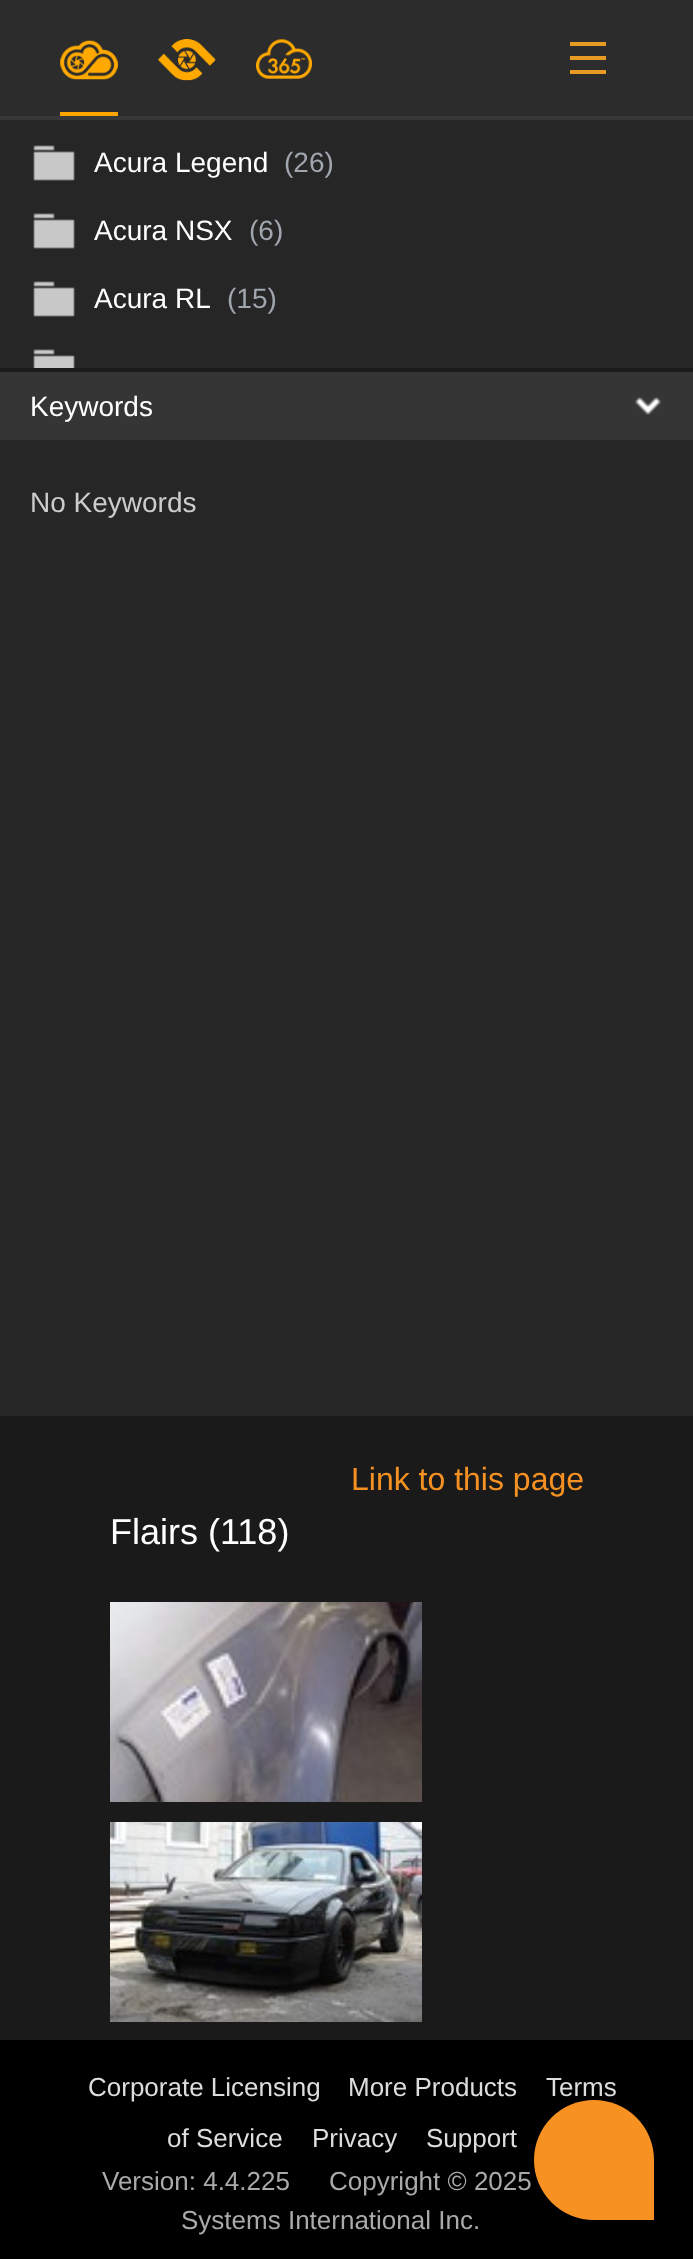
async function draw(canvas) {
  canvas.width = 693;
  canvas.height = 2259;
  const ctx = canvas.getContext('2d');
  ctx.miterLimit = 4;
  ctx.fontKerning = 'normal';
  function label(s, x, y, font, color) {
    ctx.font = font;
    ctx.fillStyle = color;
    ctx.fillText(s, x, y);
  }
  function rect(x, y, w, h, color) {
    ctx.fillStyle = color;
    ctx.fillRect(x, y, w, h);
  }
  async function image(src, x, y, w, h) {
    const img = new Image();
    img.src = src;
    await img.decode();
    ctx.drawImage(img, x, y, w, h);
  }

  rect(0, 0, 693, 2259, '#1a1a1a');
  rect(0, 0, 693, 116, '#2c2c2c');
  rect(0, 116, 693, 4, '#383838');
  rect(60, 112, 58, 4, '#ffa500');
  await image('assets/img1.png', 60, 40, 58, 40);
  await image('assets/img2.png', 158, 39, 58, 42);
  await image('assets/img3.png', 256, 39, 56, 40);
  rect(570, 70, 36, 4, '#e89a22');
  rect(570, 56, 36, 4, '#e89a22');
  rect(570, 42, 36, 4, '#e89a22');
  rect(0, 120, 693, 248, '#262626');
  await image('assets/img4.png', 33, 145, 42, 36);
  label('Acura Legend', 94, 172, '28px Liberation Sans', '#fff');
  label('(26)', 284, 172, '28px Liberation Sans', '#a0a5ae');
  await image('assets/img4.png', 33, 213, 42, 36);
  label('Acura NSX', 94, 240, '28px Liberation Sans', '#fff');
  label('(6)', 249, 240, '28px Liberation Sans', '#a0a5ae');
  await image('assets/img4.png', 33, 281, 42, 36);
  label('Acura RL', 94, 308, '28px Liberation Sans', '#fff');
  label('(15)', 227, 308, '28px Liberation Sans', '#a0a5ae');
  await image('assets/img5.png', 33, 349, 42, 19);
  rect(0, 440, 693, 976, '#262626');
  rect(0, 372, 693, 68, '#353535');
  label('Keywords', 30, 416, '28px Liberation Sans', '#fff');
  await image('assets/img6.png', 635, 397, 26, 18);
  label('No Keywords', 30, 512, '28px Liberation Sans', '#ccc');
  label('Link to this page', 351, 1490, '32px Liberation Sans', '#f59122');
  label('Flairs (118)', 110, 1544, '36px Liberation Sans', '#fff');
  await image('assets/img7.png', 110, 1602, 312, 200);
  await image('assets/img8.png', 110, 1822, 312, 200);
  rect(0, 2040, 693, 219, '#000');
  label('Corporate Licensing', 88, 2096, '26px Liberation Sans', '#ddd');
  label('More Products', 348, 2096, '26px Liberation Sans', '#ddd');
  label('Terms', 546, 2096, '26px Liberation Sans', '#ddd');
  label('of Service', 167, 2147, '26px Liberation Sans', '#ddd');
  label('Privacy', 312, 2147, '26px Liberation Sans', '#ddd');
  label('Support', 426, 2147, '26px Liberation Sans', '#ddd');
  label('Version: 4.4.225', 102, 2190, '26px Liberation Sans', '#aaa');
  label('Copyright © 2025', 329, 2190, '26px Liberation Sans', '#aaa');
  label('Systems International Inc.', 181, 2229, '26px Liberation Sans', '#aaa');
  ctx.fillStyle = '#f79121';
  ctx.beginPath();
  ctx.roundRect(534, 2100, 120, 120, [60, 60, 0, 60]);
  ctx.fill();
}

draw(document.querySelector('canvas'));
